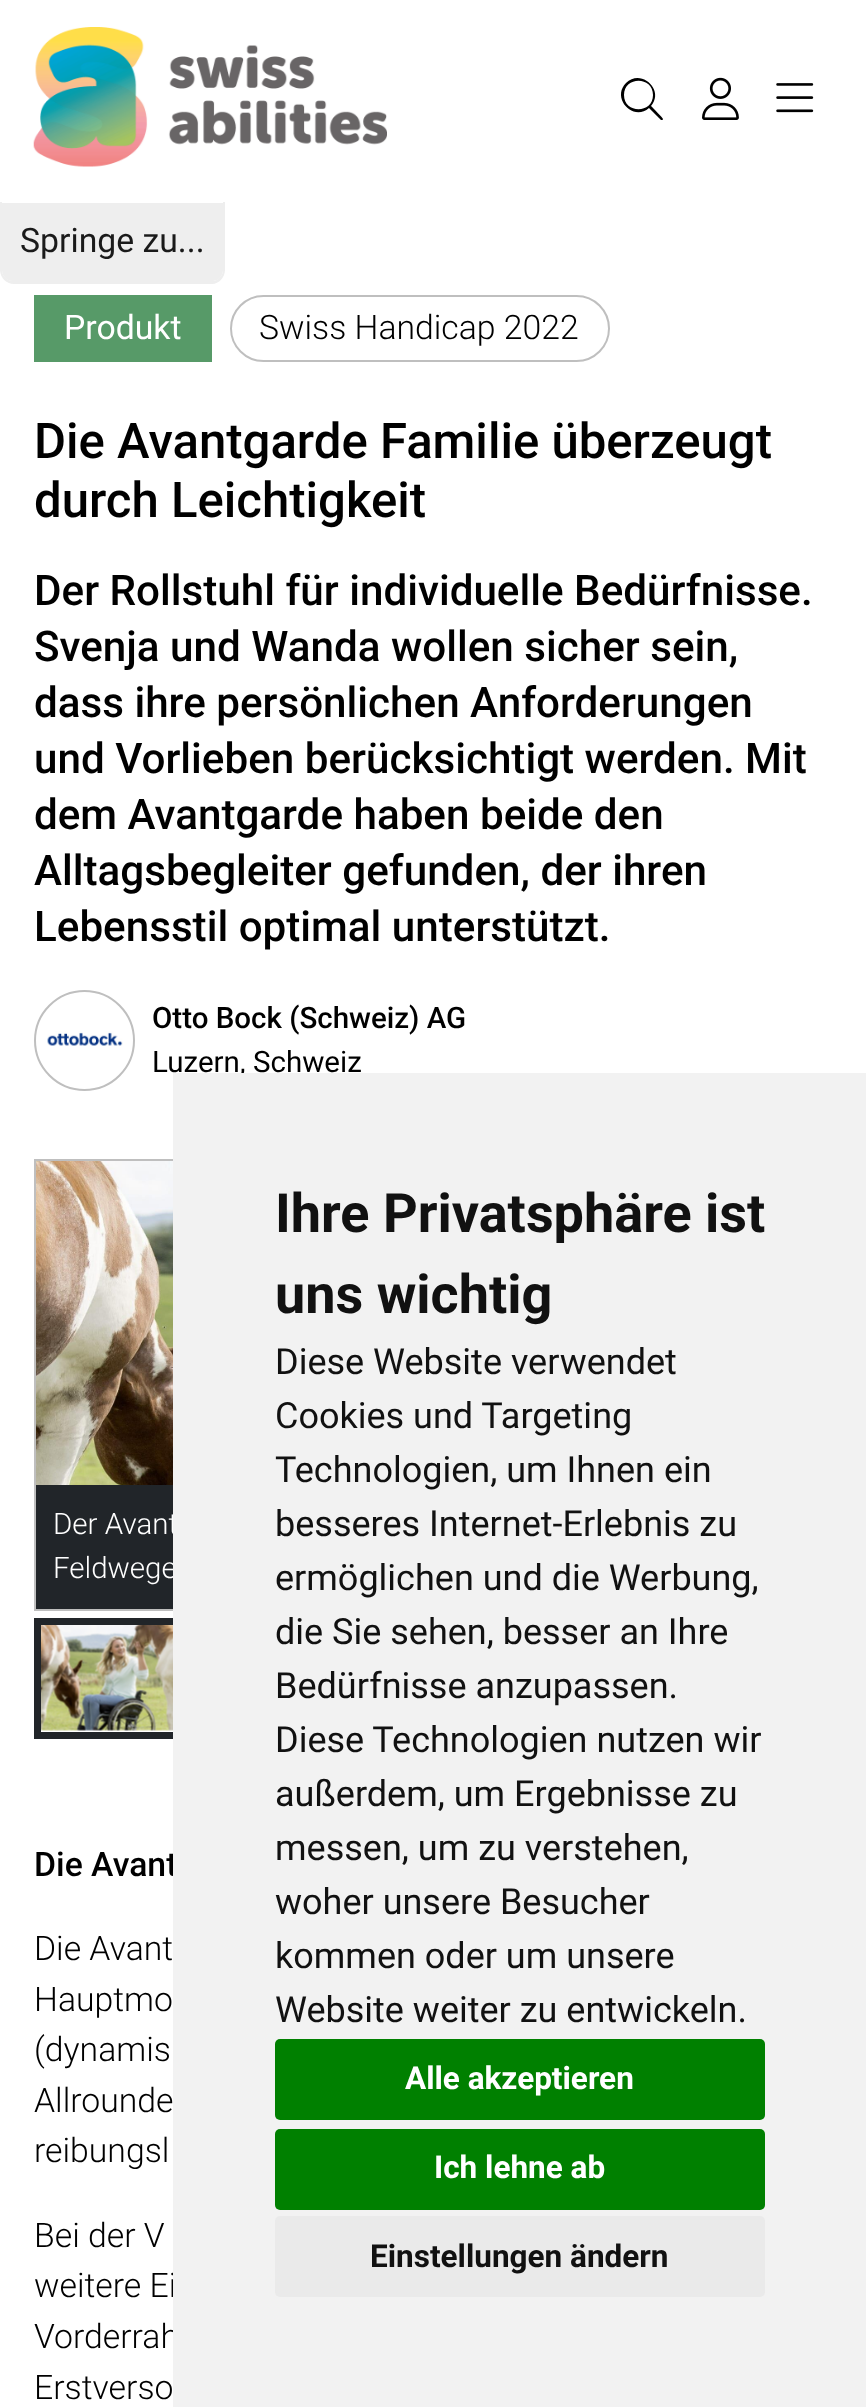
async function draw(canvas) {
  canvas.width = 866;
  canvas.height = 2407;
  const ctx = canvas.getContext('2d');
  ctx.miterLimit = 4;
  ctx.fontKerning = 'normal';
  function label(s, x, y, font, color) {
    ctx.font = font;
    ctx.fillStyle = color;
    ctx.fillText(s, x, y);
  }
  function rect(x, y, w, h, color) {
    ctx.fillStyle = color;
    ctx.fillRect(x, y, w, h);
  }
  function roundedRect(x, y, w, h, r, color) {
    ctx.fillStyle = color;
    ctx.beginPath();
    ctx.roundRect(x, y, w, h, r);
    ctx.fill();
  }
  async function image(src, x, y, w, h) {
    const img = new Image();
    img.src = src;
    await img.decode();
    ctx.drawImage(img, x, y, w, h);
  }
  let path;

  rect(0, 0, 866, 2407, '#fff');
  await image('assets/img1.png', 33, 27, 354, 140);
  ctx.fillStyle = '#000';
  path = new Path2D('M653 95C653 76 624 76 624 95C624 114 653 114 653 95ZM649 108C633 122 611 98 626 83C641 68 665 90 651 106C653 108 663 118 663 119C663 120 662 120 661 120Z');
  ctx.fill(path);
  await image('assets/img2.png', 702, 77, 37, 43);
  await image('assets/img3.png', 776, 83, 38, 30);
  ctx.fillStyle = '#eee';
  ctx.beginPath();
  ctx.roundRect(2, 203, 221, 78, [0, 0, 11, 11]);
  ctx.fill();
  path = new Path2D('M0 202H225V270C225 277 219 284 212 284H14C6 284 0 277 0 270ZM2 202H223V270C223 276 218 281 212 281H14C7 281 2 276 2 270Z');
  ctx.fill(path, 'evenodd');
  label('Springe zu...', 20, 252, '33.75px Roboto', '#1a1a1a');
  rect(34, 295, 178, 67, '#579a68');
  label('Produkt', 64, 339, '33.75px Roboto', '#fff');
  ctx.beginPath();
  ctx.roundRect(231, 296, 378, 65, 32.5);
  ctx.strokeStyle = '#bfbfbf';
  ctx.lineWidth = 2;
  ctx.stroke();
  label('Swiss Handicap 2022', 259, 339, '300 33.75px Roboto', '#000');
  label('Die Avantgarde Familie überzeugt', 34, 458, '500 49.1px Roboto', '#000');
  label('durch Leichtigkeit', 34, 517, '500 49.1px Roboto', '#000');
  label('Der Rollstuhl für individuelle Bedürfnisse.', 34, 605, '500 42.2px Roboto', '#000');
  label('Svenja und Wanda wollen sicher sein,', 34, 661, '500 42.2px Roboto', '#000');
  label('dass ihre persönlichen Anforderungen', 34, 717, '500 42.2px Roboto', '#000');
  label('und Vorlieben berücksichtigt werden. Mit', 34, 773, '500 42.2px Roboto', '#000');
  label('dem Avantgarde haben beide den', 34, 829, '500 42.2px Roboto', '#000');
  label('Alltagsbegleiter gefunden, der ihren', 34, 885, '500 42.2px Roboto', '#000');
  label('Lebensstil optimal unterstützt.', 34, 941, '500 42.2px Roboto', '#000');
  await image('assets/img4.png', 47, 1031, 76, 15);
  ctx.beginPath();
  ctx.arc(84.5, 1040.5, 49.5, 0, 2 * Math.PI);
  ctx.stroke();
  label('Otto Bock (Schweiz) AG', 152, 1028, '500 29.5px Roboto', '#000');
  label('Luzern, Schweiz', 152, 1072, '29.5px Roboto', '#000');
  ctx.strokeRect(35, 1160, 797, 450);
  await image('assets/img5.png', 36, 1161, 137, 324);
  rect(36, 1485, 137, 124, '#212529');
  label('Der Avant', 53, 1534, '300 29.5px Roboto', '#fff');
  label('Feldwege', 53, 1578, '300 29.5px Roboto', '#fff');
  ctx.strokeStyle = '#212529';
  ctx.lineWidth = 7;
  ctx.strokeRect(37.5, 1621.5, 195, 114);
  await image('assets/img6.png', 41, 1625, 132, 106);
  label('Die Avant', 34, 1876, '500 33.75px Roboto', '#000');
  label('Die Avant', 34, 1960, '300 33.75px Roboto', '#000');
  label('Hauptmo', 34, 2011, '300 33.75px Roboto', '#000');
  label('(dynamis', 34, 2061, '300 33.75px Roboto', '#000');
  label('Allrounde', 34, 2112, '300 33.75px Roboto', '#000');
  label('reibungsl', 34, 2162, '300 33.75px Roboto', '#000');
  label('Bei der V', 34, 2247, '300 33.75px Roboto', '#000');
  label('weitere Ei', 34, 2297, '300 33.75px Roboto', '#000');
  label('Vorderrah', 34, 2348, '300 33.75px Roboto', '#000');
  label('Erstverso', 34, 2399, '300 33.75px Roboto', '#000');
  rect(173, 1073, 693, 1334, '#f2f2f2');
  label('Ihre Privatsphäre ist', 275, 1232, 'bold 54px Roboto', '#111');
  label('uns wichtig', 275, 1313, 'bold 54px Roboto', '#111');
  label('Diese Website verwendet', 275, 1374, '36px Roboto', '#111');
  label('Cookies und Targeting', 275, 1428, '36px Roboto', '#111');
  label('Technologien, um Ihnen ein', 275, 1482, '36px Roboto', '#111');
  label('besseres Internet-Erlebnis zu', 275, 1536, '36px Roboto', '#111');
  label('ermöglichen und die Werbung,', 275, 1590, '36px Roboto', '#111');
  label('die Sie sehen, besser an Ihre', 275, 1644, '36px Roboto', '#111');
  label('Bedürfnisse anzupassen.', 275, 1698, '36px Roboto', '#111');
  label('Diese Technologien nutzen wir', 275, 1752, '36px Roboto', '#111');
  label('außerdem, um Ergebnisse zu', 275, 1806, '36px Roboto', '#111');
  label('messen, um zu verstehen,', 275, 1860, '36px Roboto', '#111');
  label('woher unsere Besucher', 275, 1914, '36px Roboto', '#111');
  label('kommen oder um unsere', 275, 1968, '36px Roboto', '#111');
  label('Website weiter zu entwickeln.', 275, 2022, '36px Roboto', '#111');
  roundedRect(275, 2039, 490, 81, 5, '#008000');
  label('Alle akzeptieren', 405, 2089, 'bold 31.5px Roboto', '#fff');
  roundedRect(275, 2129, 490, 81, 5, '#008000');
  label('Ich lehne ab', 434, 2178, 'bold 31.5px Roboto', '#fff');
  roundedRect(275, 2216, 490, 81, 5, '#eaeaea');
  label('Einstellungen ändern', 370, 2267, 'bold 31.5px Roboto', '#111');
}

draw(document.querySelector('canvas'));
